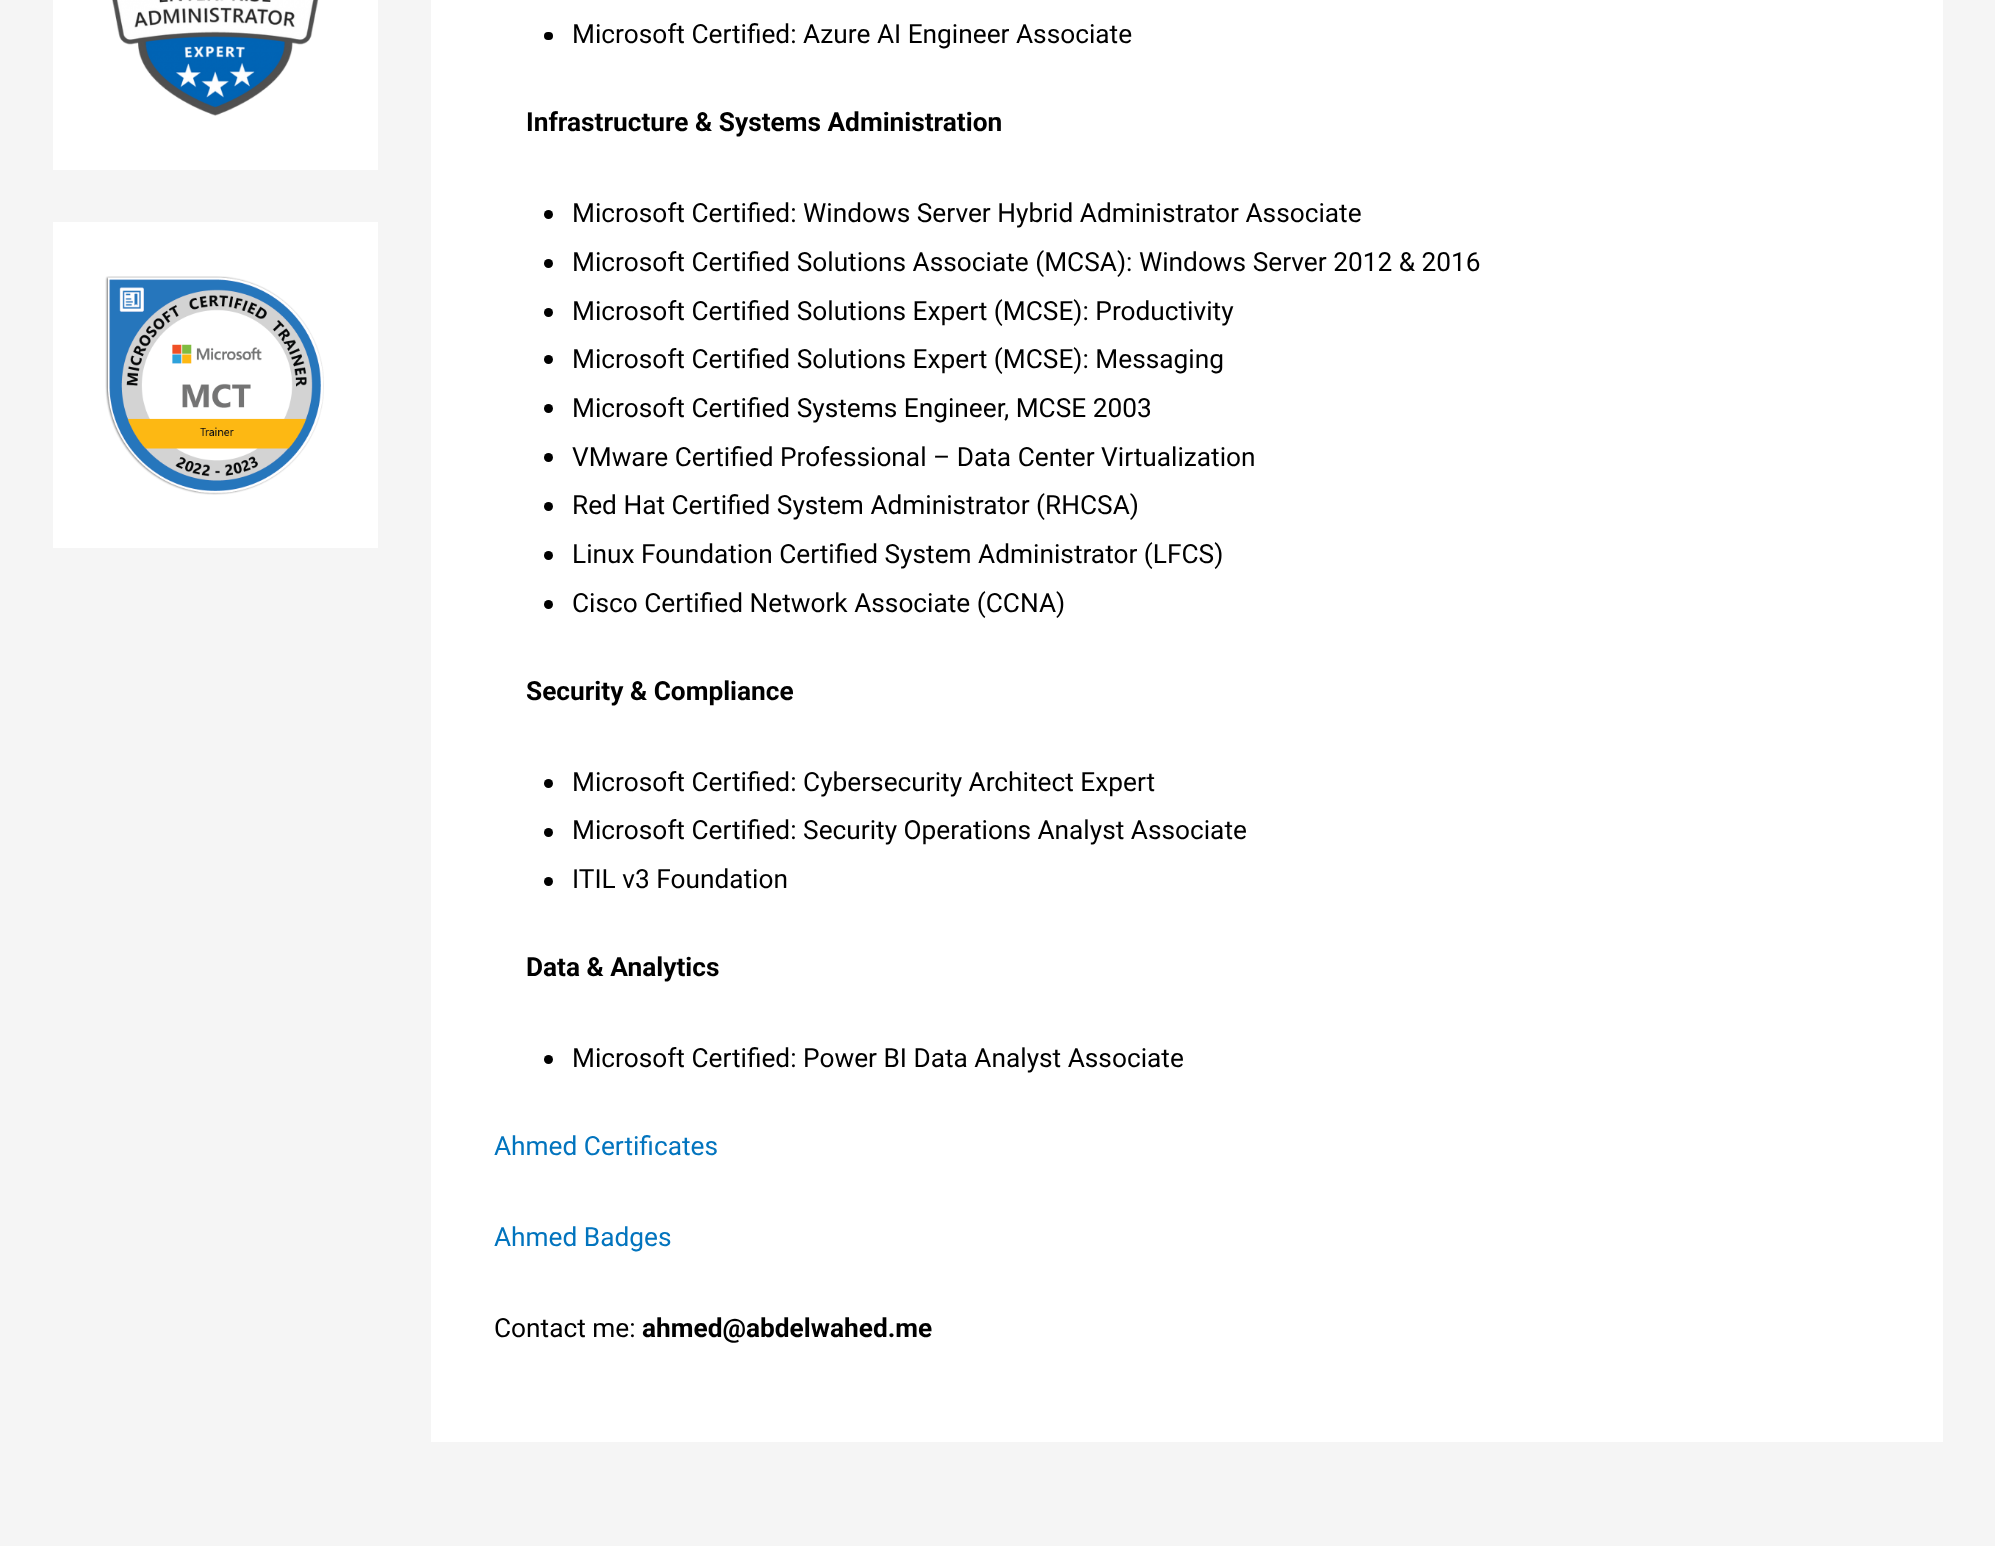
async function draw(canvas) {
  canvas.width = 1995;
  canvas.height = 1546;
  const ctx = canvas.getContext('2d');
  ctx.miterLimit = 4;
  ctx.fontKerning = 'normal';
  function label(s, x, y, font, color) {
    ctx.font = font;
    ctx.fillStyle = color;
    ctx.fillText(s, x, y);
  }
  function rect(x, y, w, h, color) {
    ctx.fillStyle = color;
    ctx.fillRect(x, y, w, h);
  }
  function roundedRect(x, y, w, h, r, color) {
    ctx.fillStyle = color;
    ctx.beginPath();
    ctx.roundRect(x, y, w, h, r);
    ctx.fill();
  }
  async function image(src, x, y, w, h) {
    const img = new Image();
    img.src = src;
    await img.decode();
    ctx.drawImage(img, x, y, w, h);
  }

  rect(0, 0, 1995, 1546, '#f5f5f5');
  rect(53, 0, 325, 170, '#fff');
  await image('assets/img1.png', 112, 0, 207, 116);
  rect(53, 222, 325, 326, '#fff');
  await image('assets/img2.png', 105, 276, 219, 219);
  rect(431, 0, 1512, 1442, '#fff');
  roundedRect(544, 32, 9, 8, 4, '#000');
  label('Microsoft Certified: Azure AI Engineer Associate', 572, 43, '26.25px Roboto', '#000');
  label('Infrastructure & Systems Administration', 526, 131, 'bold 26.25px Roboto', '#000');
  ctx.beginPath();
  ctx.arc(548.5, 214.5, 4.5, 0, 2 * Math.PI);
  ctx.fill();
  label('Microsoft Certified: Windows Server Hybrid Administrator Associate', 572, 222, '26.25px Roboto', '#000');
  ctx.beginPath();
  ctx.arc(548.5, 263.5, 4.5, 0, 2 * Math.PI);
  ctx.fill();
  label('Microsoft Certified Solutions Associate (MCSA): Windows Server 2012 & 2016', 572, 271, '26.25px Roboto', '#000');
  ctx.beginPath();
  ctx.arc(548.5, 312.5, 4.5, 0, 2 * Math.PI);
  ctx.fill();
  label('Microsoft Certified Solutions Expert (MCSE): Productivity', 572, 320, '26.25px Roboto', '#000');
  ctx.beginPath();
  ctx.arc(548.5, 359.5, 4.5, 0, 2 * Math.PI);
  ctx.fill();
  label('Microsoft Certified Solutions Expert (MCSE): Messaging', 572, 368, '26.25px Roboto', '#000');
  ctx.beginPath();
  ctx.arc(548.5, 408.5, 4.5, 0, 2 * Math.PI);
  ctx.fill();
  label('Microsoft Certified Systems Engineer, MCSE 2003', 572, 417, '26.25px Roboto', '#000');
  ctx.beginPath();
  ctx.arc(548.5, 457.5, 4.5, 0, 2 * Math.PI);
  ctx.fill();
  label('VMware Certified Professional – Data Center Virtualization', 572, 466, '26.25px Roboto', '#000');
  ctx.beginPath();
  ctx.arc(548.5, 506.5, 4.5, 0, 2 * Math.PI);
  ctx.fill();
  label('Red Hat Certified System Administrator (RHCSA)', 572, 514, '26.25px Roboto', '#000');
  ctx.beginPath();
  ctx.arc(548.5, 555.5, 4.5, 0, 2 * Math.PI);
  ctx.fill();
  label('Linux Foundation Certified System Administrator (LFCS)', 572, 563, '26.25px Roboto', '#000');
  ctx.beginPath();
  ctx.arc(548.5, 604.5, 4.5, 0, 2 * Math.PI);
  ctx.fill();
  label('Cisco Certified Network Associate (CCNA)', 572, 612, '26.25px Roboto', '#000');
  label('Security & Compliance', 526, 700, 'bold 26.25px Roboto', '#000');
  ctx.beginPath();
  ctx.arc(548.5, 783.5, 4.5, 0, 2 * Math.PI);
  ctx.fill();
  label('Microsoft Certified: Cybersecurity Architect Expert', 572, 791, '26.25px Roboto', '#000');
  ctx.beginPath();
  ctx.arc(548.5, 832.5, 4.5, 0, 2 * Math.PI);
  ctx.fill();
  label('Microsoft Certified: Security Operations Analyst Associate', 572, 839, '26.25px Roboto', '#000');
  ctx.beginPath();
  ctx.arc(548.5, 881.5, 4.5, 0, 2 * Math.PI);
  ctx.fill();
  label('ITIL v3 Foundation', 572, 888, '26.25px Roboto', '#000');
  label('Data & Analytics', 526, 976, 'bold 26.25px Roboto', '#000');
  ctx.beginPath();
  ctx.arc(548.5, 1059.5, 4.5, 0, 2 * Math.PI);
  ctx.fill();
  label('Microsoft Certified: Power BI Data Analyst Associate', 572, 1067, '26.25px Roboto', '#000');
  label('Ahmed Certificates', 494, 1155, '26.25px Roboto', '#0274be');
  label('Ahmed Badges', 494, 1246, '26.25px Roboto', '#0274be');
  label('Contact me:', 494, 1337, '26.25px Roboto', '#000');
  label('ahmed@abdelwahed.me', 642, 1337, 'bold 26.25px Roboto', '#000');
}

draw(document.querySelector('canvas'));
